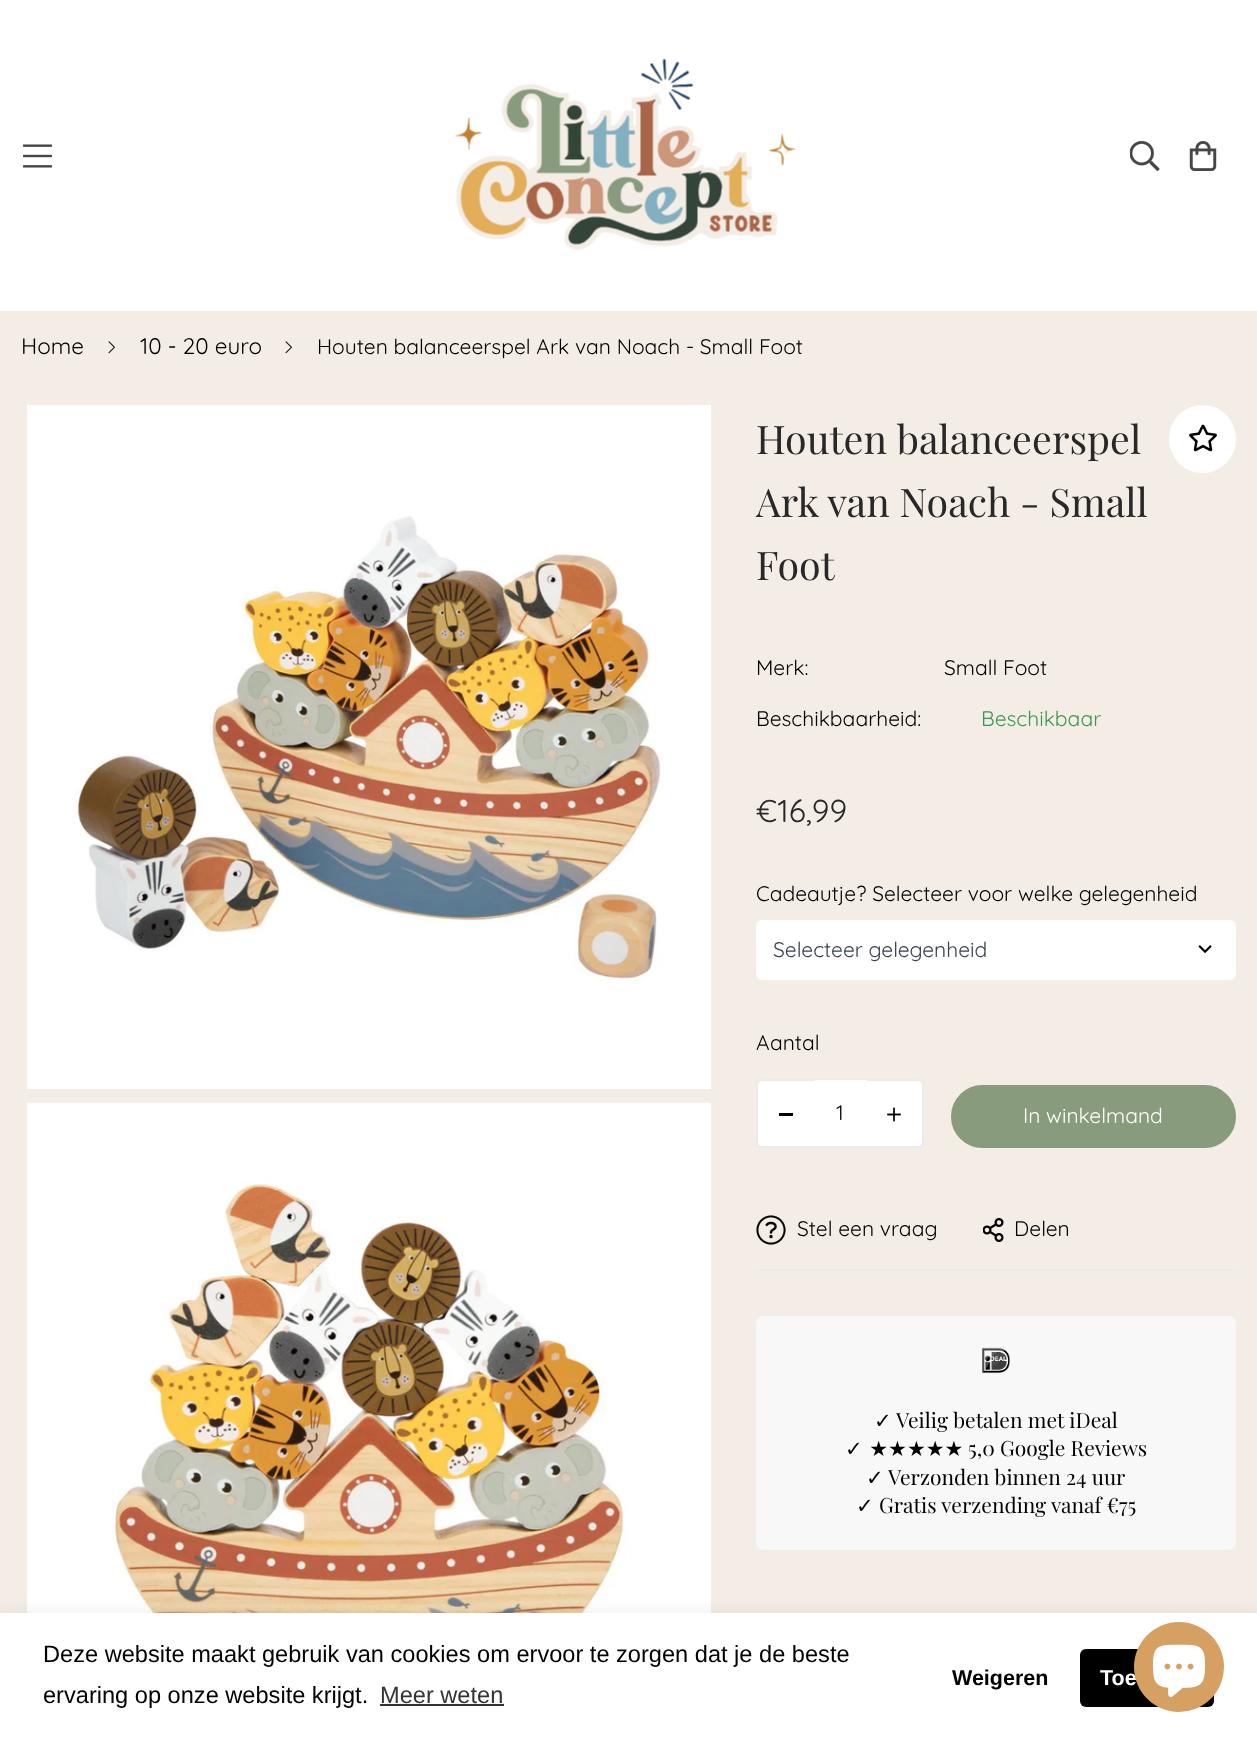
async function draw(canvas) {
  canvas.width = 1257;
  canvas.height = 1742;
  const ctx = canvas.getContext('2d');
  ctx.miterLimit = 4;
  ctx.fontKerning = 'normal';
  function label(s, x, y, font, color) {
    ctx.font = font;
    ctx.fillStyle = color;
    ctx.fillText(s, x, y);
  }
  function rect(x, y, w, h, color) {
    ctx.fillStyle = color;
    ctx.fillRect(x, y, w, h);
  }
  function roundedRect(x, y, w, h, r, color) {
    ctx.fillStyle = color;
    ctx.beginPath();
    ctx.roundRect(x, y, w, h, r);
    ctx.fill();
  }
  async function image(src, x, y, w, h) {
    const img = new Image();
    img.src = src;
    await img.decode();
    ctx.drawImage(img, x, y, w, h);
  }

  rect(0, 0, 1257, 1742, '#f4ede6');
  rect(0, 0, 1257, 311, '#fff');
  await image('assets/img1.png', 23, 144, 29, 24);
  await image('assets/img2.png', 455, 58, 341, 192);
  await image('assets/img3.png', 1130, 141, 30, 30);
  await image('assets/img4.png', 1189, 141, 28, 30);
  label('Home', 21, 354, '22.5px Quicksand', '#000');
  await image('assets/img5.png', 108, 341, 7, 13);
  label('10 - 20 euro', 140, 354, '22.5px Quicksand', '#000');
  await image('assets/img5.png', 285, 341, 7, 13);
  label('Houten balanceerspel Ark van Noach - Small Foot', 317, 354, '21px Quicksand', '#000');
  await image('assets/img6.png', 27, 405, 684, 684);
  await image('assets/img7.png', 27, 1102, 684, 511);
  label('Houten balanceerspel', 756, 454, '39.4px Playfair Display', '#282828');
  label('Ark van Noach - Small', 756, 517, '39.4px Playfair Display', '#282828');
  label('Foot', 756, 580, '39.4px Playfair Display', '#282828');
  roundedRect(1169, 405, 67, 68, 33.5, '#fff');
  await image('assets/img8.png', 1189, 424, 28, 28);
  label('Merk:', 756, 675, '21px Quicksand', '#000');
  label('Small Foot', 944, 675, '21px Quicksand', '#000');
  label('Beschikbaarheid:', 756, 726, '21px Quicksand', '#000');
  label('Beschikbaar', 981, 726, '21px Quicksand', '#3d9851');
  label('€16,99', 756, 822, '31.5px Quicksand', '#282828');
  label('Cadeautje? Selecteer voor welke gelegenheid', 756, 901, '21px Quicksand', '#000');
  roundedRect(756, 920, 480, 60, 6, '#fff');
  await image('assets/img9.png', 1198, 945, 14, 8);
  label('Selecteer gelegenheid', 773, 957, '21px Quicksand', '#374151');
  label('Aantal', 756, 1050, '21px Quicksand', '#000');
  ctx.fillStyle = '#fff';
  ctx.beginPath();
  ctx.roundRect(757, 1080, 166, 67, 5);
  ctx.fill();
  ctx.strokeStyle = '#ebebeb';
  ctx.lineWidth = 2;
  ctx.stroke();
  rect(779, 1113, 14, 3, '#000');
  rect(815, 1080, 52, 1, '#fff');
  label('1', 836, 1120, '21px Quicksand', '#000');
  await image('assets/img10.png', 887, 1107, 14, 15);
  ctx.fillStyle = '#889b7c';
  ctx.beginPath();
  ctx.roundRect(952, 1086, 283, 61, 30.5);
  ctx.fill();
  ctx.strokeStyle = '#889b7c';
  ctx.stroke();
  label('In winkelmand', 1023, 1123, '21px Quicksand', '#fff');
  rect(756, 1269, 480, 2, '#ebebeb');
  await image('assets/img11.png', 756, 1215, 30, 30);
  label('Stel een vraag', 797, 1236, '21px Quicksand', '#000');
  await image('assets/img12.png', 983, 1218, 21, 24);
  label('Delen', 1014, 1236, '21px Quicksand', '#000');
  roundedRect(756, 1316, 480, 234, 8, '#f8f8f8');
  await image('assets/img13.png', 982, 1347, 28, 27);
  label('✓', 874, 1428, '21px DejaVu Sans', '#000');
  label('Veilig betalen met iDeal', 896, 1428, '21px Playfair Display', '#000');
  label('✓ ★★★★★', 845, 1456, '21px DejaVu Sans', '#000');
  label('5,0', 968, 1456, '21px Playfair Display', '#000');
  label('Google Reviews', 1000, 1456, '21px Playfair Display', '#000');
  label('✓', 866, 1485, '21px DejaVu Sans', '#000');
  label('Verzonden binnen 24 uur', 888, 1485, '21px Playfair Display', '#000');
  label('✓', 856, 1513, '21px DejaVu Sans', '#000');
  label('Gratis verzending vanaf €75', 879, 1513, '21px Playfair Display', '#000');
  ctx.fillStyle = '#00000026';
  ctx.filter = 'blur(11px)';
  ctx.beginPath();
  ctx.rect(0, 1620, 1257, 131);
  ctx.fill();
  ctx.filter = 'none';
  rect(0, 1613, 1257, 129, '#fff');
  label('Deze website maakt gebruik van cookies om ervoor te zorgen dat je de beste', 43, 1662, '23.6px Liberation Sans', '#000');
  label('ervaring op onze website krijgt.', 43, 1703, '23.6px Liberation Sans', '#000');
  label('Meer weten', 380, 1703, '23.6px Liberation Sans', '#333');
  rect(380, 1704, 124, 2, '#333');
  label('Weigeren', 952, 1685, 'bold 21.5px Liberation Sans', '#000');
  roundedRect(1080, 1649, 134, 58, 6, '#000');
  label('Toe', 1100, 1685, 'bold 21.5px Liberation Sans', '#fff');
  ctx.fillStyle = '#d5a061';
  ctx.beginPath();
  ctx.arc(1179, 1667, 45, 0, 2 * Math.PI);
  ctx.fill();
  await image('assets/img14.png', 1152, 1644, 54, 53);
}

draw(document.querySelector('canvas'));
